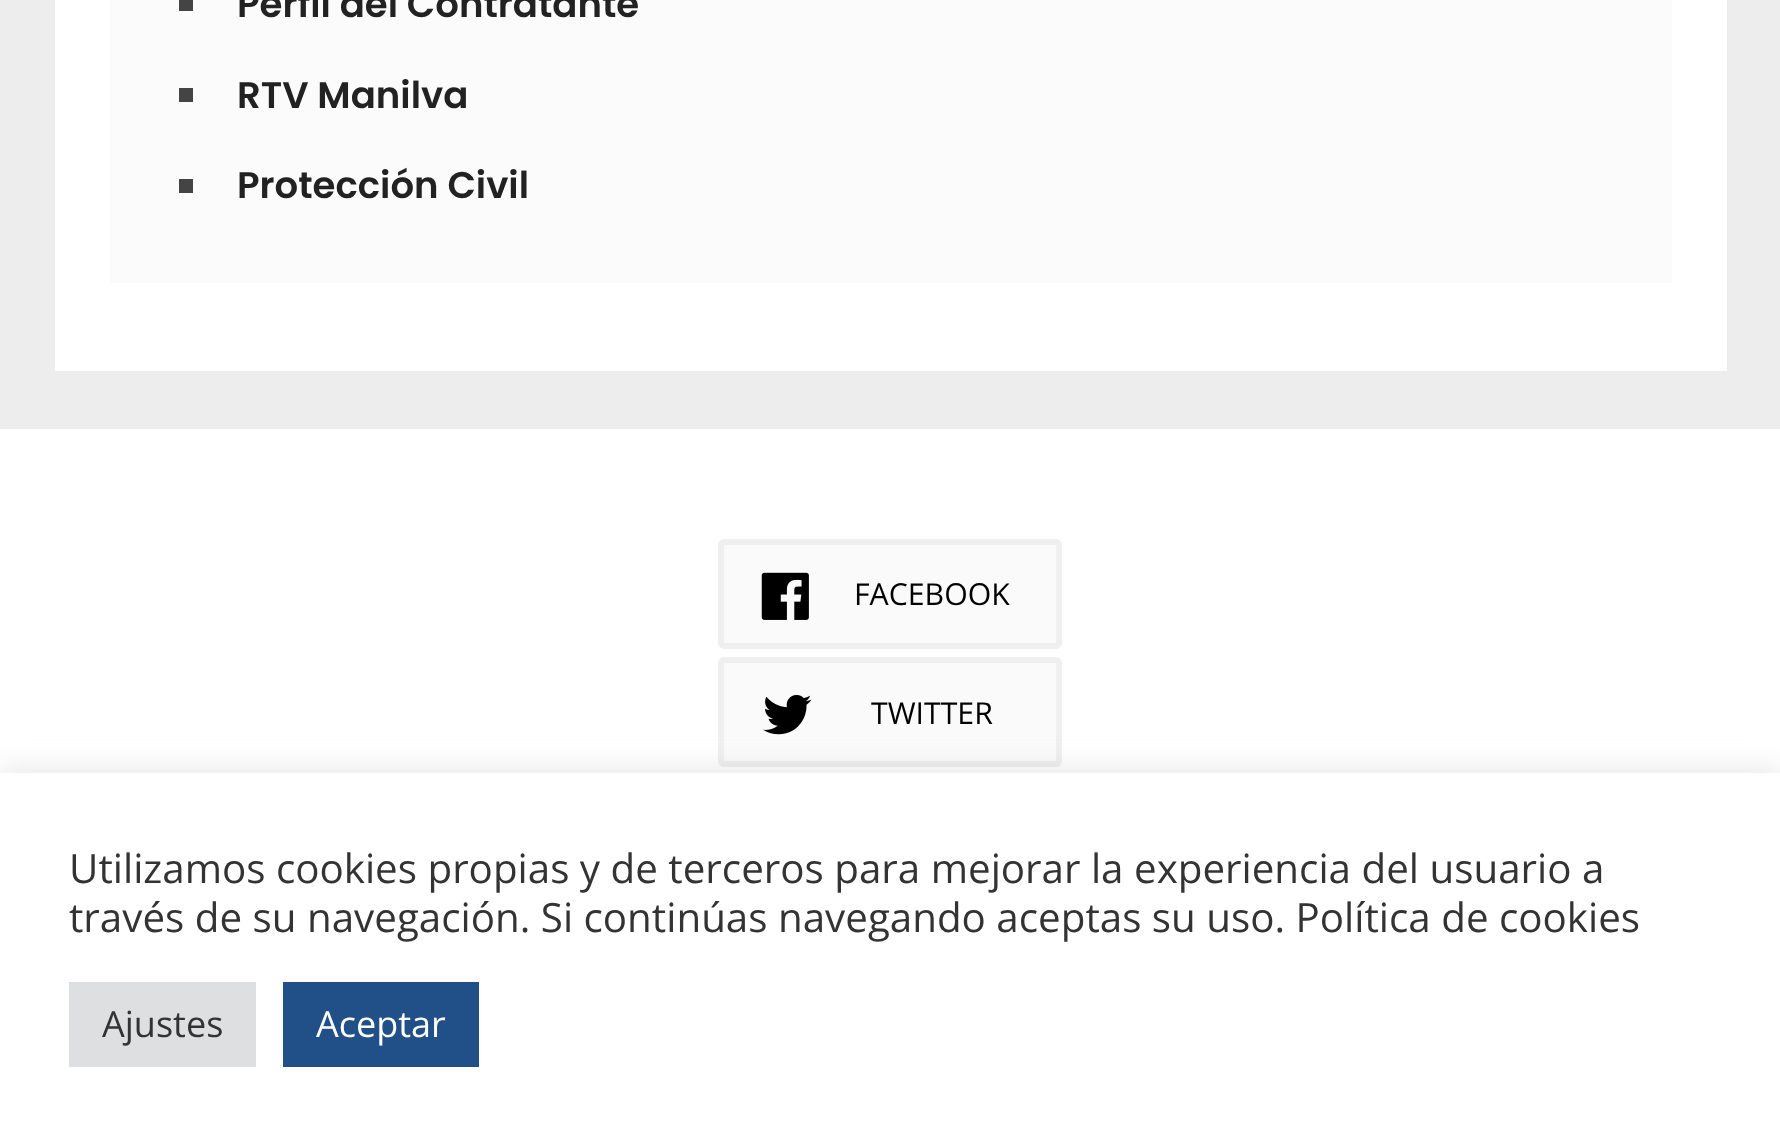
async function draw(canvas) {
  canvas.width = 1780;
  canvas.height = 1148;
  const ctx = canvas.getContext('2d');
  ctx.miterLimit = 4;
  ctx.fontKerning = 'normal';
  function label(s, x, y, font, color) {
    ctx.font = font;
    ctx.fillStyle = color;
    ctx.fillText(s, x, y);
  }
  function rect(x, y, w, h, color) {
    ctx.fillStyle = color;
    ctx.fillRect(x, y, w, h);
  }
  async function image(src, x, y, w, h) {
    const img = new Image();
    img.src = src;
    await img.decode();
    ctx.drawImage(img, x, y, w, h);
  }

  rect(0, 0, 1780, 1148, '#ededed');
  rect(55, 0, 1672, 371, '#fff');
  rect(110, 0, 1562, 283, '#fbfbfb');
  rect(179, 0, 14, 11, '#444');
  label('Perfil del Contratante', 237, 17, '600 37.1px Poppins', '#222');
  rect(179, 88, 14, 14, '#444');
  label('RTV Manilva', 237, 108, '600 37.1px Poppins', '#222');
  rect(179, 179, 14, 14, '#444');
  label('Protección Civil', 237, 198, '600 37.1px Poppins', '#222');
  rect(0, 429, 1780, 344, '#fff');
  ctx.fillStyle = '#fafafa';
  ctx.beginPath();
  ctx.roundRect(721, 542, 338, 104, 3);
  ctx.fill();
  ctx.strokeStyle = '#efefef';
  ctx.lineWidth = 6;
  ctx.stroke();
  await image('assets/img1.png', 761, 572, 48, 48);
  label('FACEBOOK', 854, 605, '30.25px Open Sans', '#000');
  ctx.fillStyle = '#fafafa';
  ctx.beginPath();
  ctx.roundRect(721, 660, 338, 104, 3);
  ctx.fill();
  ctx.stroke();
  await image('assets/img2.png', 763, 695, 49, 40);
  label('TWITTER', 871, 724, '30.25px Open Sans', '#000');
  ctx.fillStyle = '#acabab4d';
  ctx.filter = 'blur(14px)';
  ctx.beginPath();
  ctx.rect(0, 770, 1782, 377);
  ctx.fill();
  ctx.filter = 'none';
  rect(0, 773, 1780, 375, '#fff');
  label('Utilizamos cookies propias y de terceros para mejorar la experiencia del usuario a', 69, 883, '40.35px Open Sans', '#333');
  label('través de su navegación. Si continúas navegando aceptas su uso. Política de cookies', 69, 932, '40.35px Open Sans', '#333');
  rect(69, 982, 187, 85, '#dedfe0');
  label('Ajustes', 102, 1037, '36px Open Sans', '#333');
  rect(283, 982, 196, 85, '#215089');
  label('Aceptar', 316, 1037, '36px Open Sans', '#fff');
}

draw(document.querySelector('canvas'));
